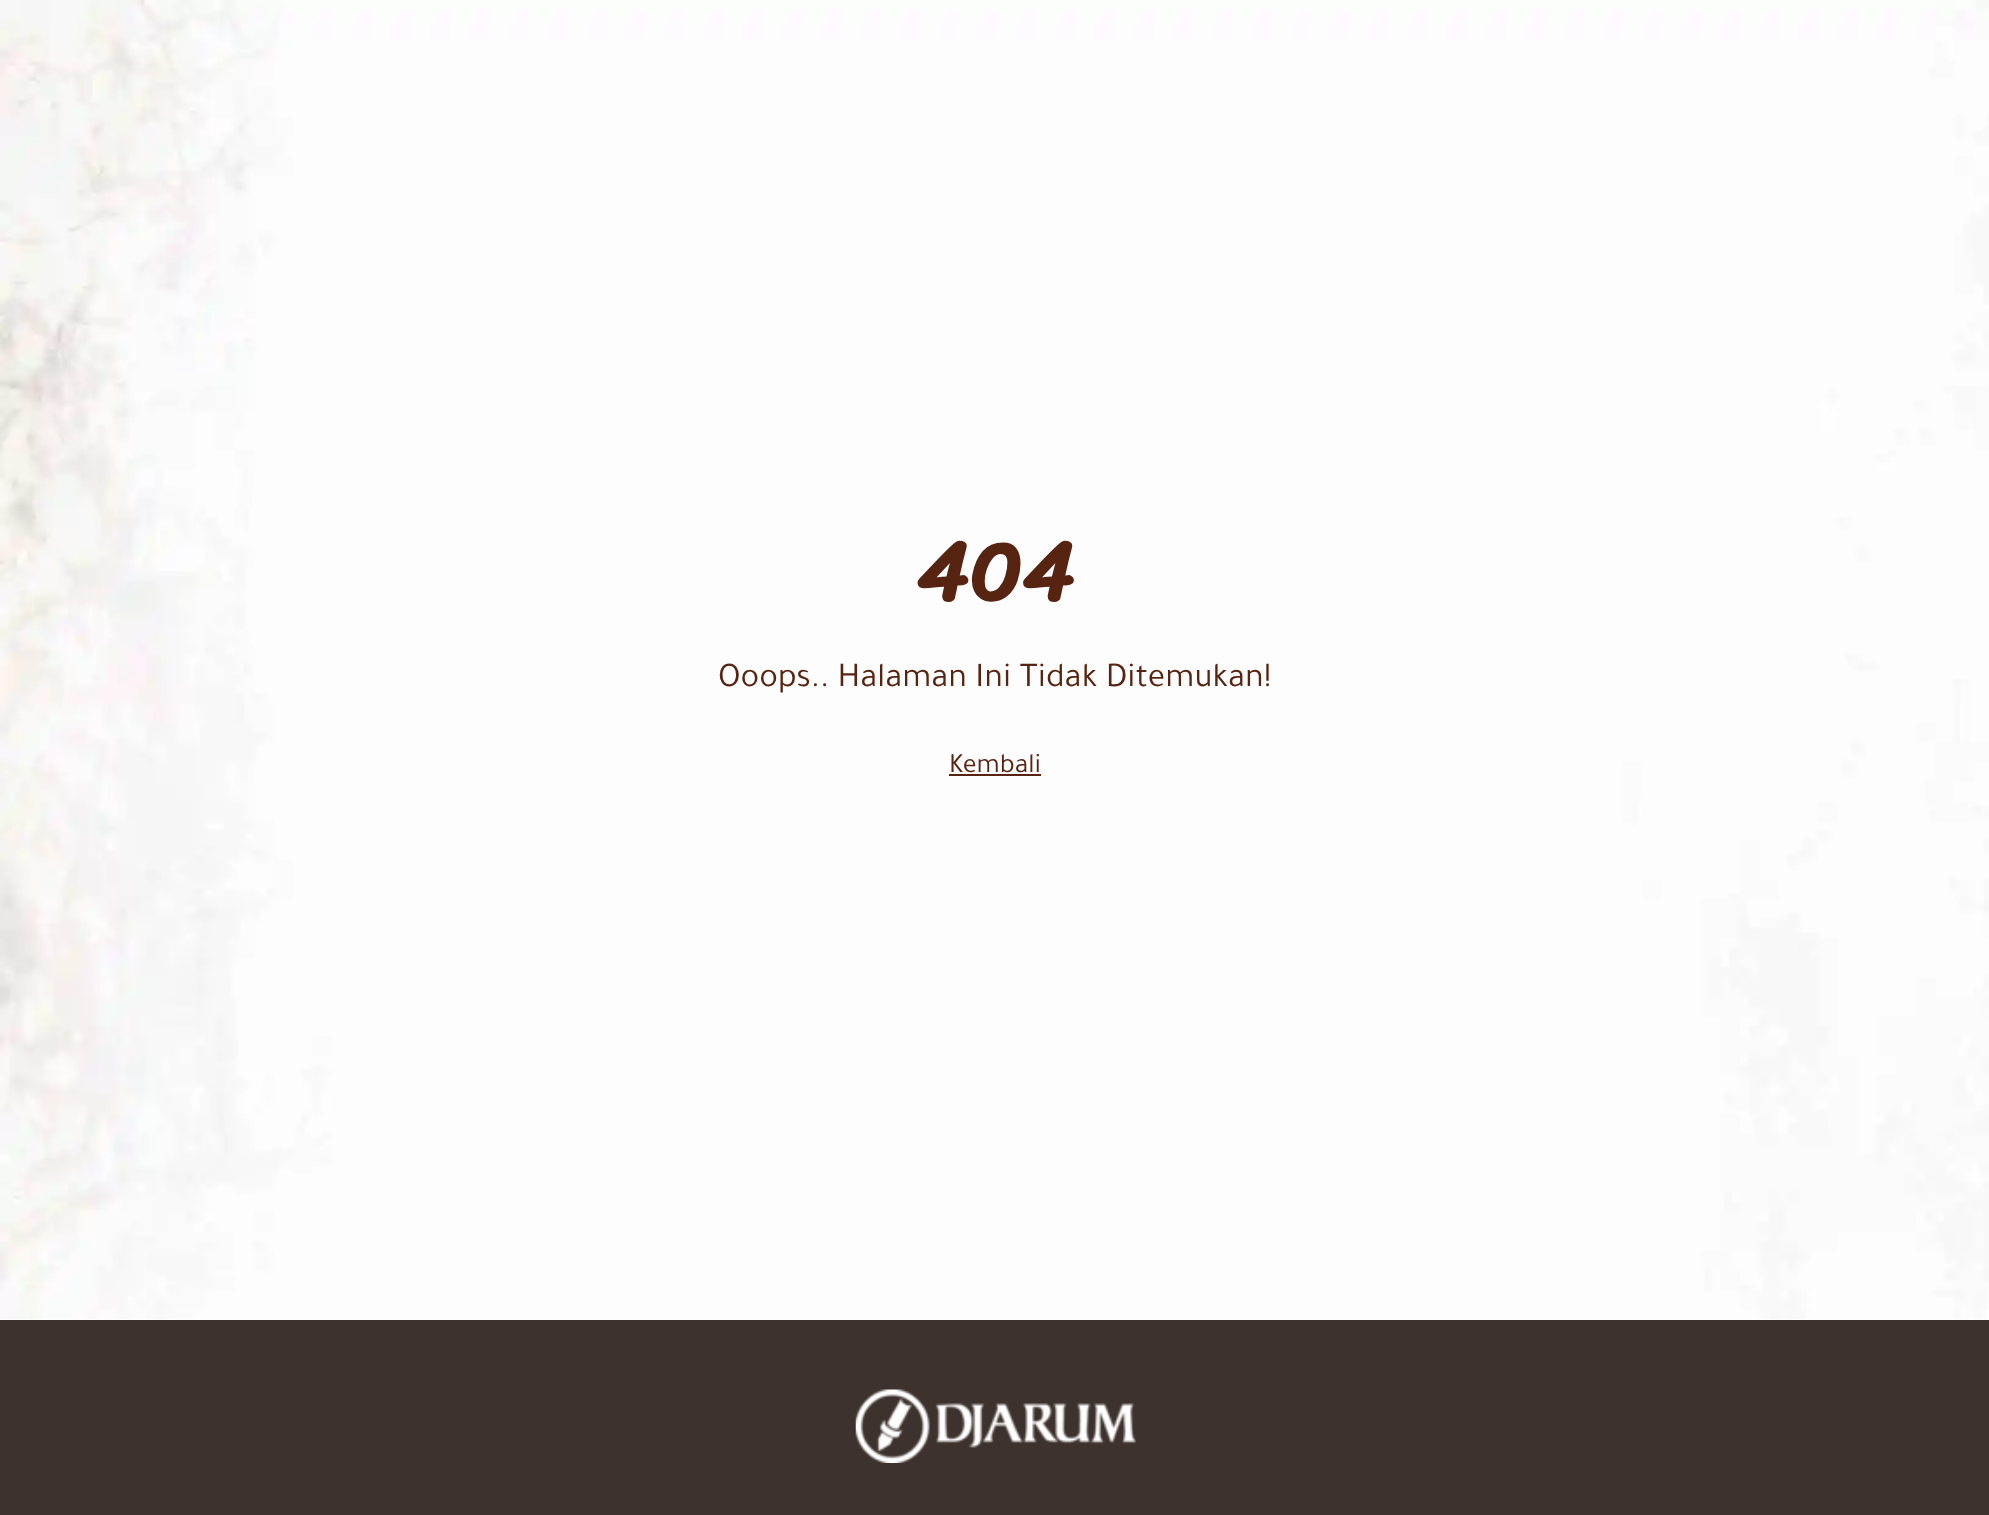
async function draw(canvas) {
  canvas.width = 1989;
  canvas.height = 1515;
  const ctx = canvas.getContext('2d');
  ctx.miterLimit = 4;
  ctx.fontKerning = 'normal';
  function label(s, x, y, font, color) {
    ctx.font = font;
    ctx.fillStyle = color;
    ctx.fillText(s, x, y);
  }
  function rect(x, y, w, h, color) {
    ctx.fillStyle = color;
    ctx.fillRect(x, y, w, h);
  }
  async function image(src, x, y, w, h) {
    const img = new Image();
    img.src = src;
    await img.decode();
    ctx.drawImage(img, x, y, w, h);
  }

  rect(0, 0, 1989, 1515, '#fff');
  await image('assets/img1.png', 0, 0, 1989, 1320);
  label('404', 916, 600, 'bold 84px Sriracha', '#572411');
  label('Ooops.. Halaman Ini Tidak Ditemukan!', 718, 686, '35px Tajawal', '#572411');
  label('Kembali', 949, 772, '28px Tajawal', '#572411');
  rect(949, 774, 92, 2, '#572411');
  rect(0, 1320, 1989, 195, '#3d322d');
  await image('assets/img2.png', 855, 1389, 281, 74);
}

draw(document.querySelector('canvas'));
